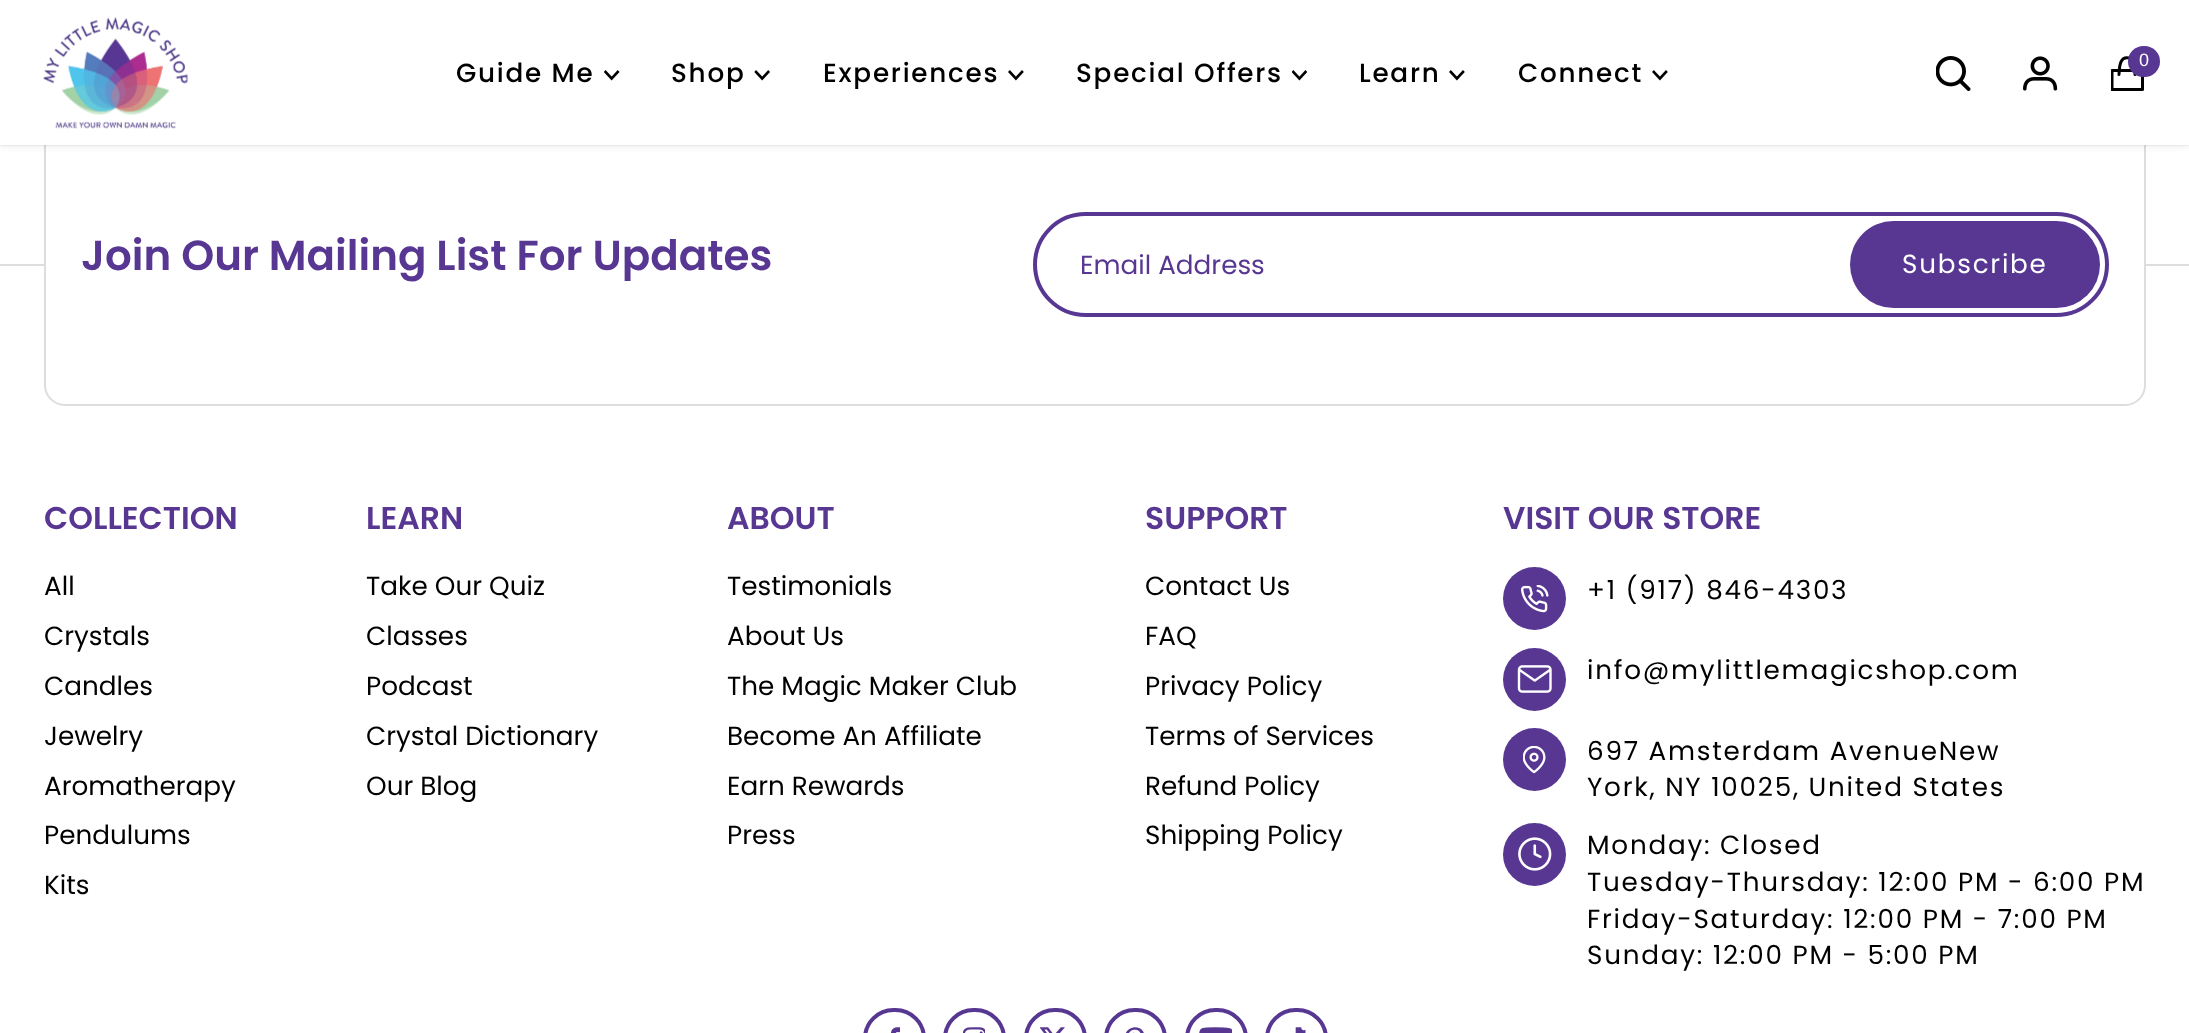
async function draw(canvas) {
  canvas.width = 2189;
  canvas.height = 1033;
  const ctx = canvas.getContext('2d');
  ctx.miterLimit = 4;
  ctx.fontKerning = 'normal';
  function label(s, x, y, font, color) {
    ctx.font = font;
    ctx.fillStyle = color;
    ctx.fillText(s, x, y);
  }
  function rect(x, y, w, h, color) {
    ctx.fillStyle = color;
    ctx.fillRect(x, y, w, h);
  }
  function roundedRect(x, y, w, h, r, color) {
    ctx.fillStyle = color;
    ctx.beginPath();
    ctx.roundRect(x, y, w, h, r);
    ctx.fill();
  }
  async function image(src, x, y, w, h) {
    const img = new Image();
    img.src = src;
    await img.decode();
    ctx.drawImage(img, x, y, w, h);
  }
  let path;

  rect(0, 0, 2189, 1033, '#fff');
  rect(0, 264, 2189, 2, '#ddd');
  ctx.fillStyle = '#fff';
  ctx.beginPath();
  ctx.roundRect(45, 124, 2100, 281, 20);
  ctx.fill();
  ctx.strokeStyle = '#ddd';
  ctx.lineWidth = 2;
  ctx.stroke();
  ctx.fillStyle = '#0000001a';
  ctx.filter = 'blur(1px)';
  ctx.beginPath();
  ctx.rect(0, 0, 2189, 145);
  ctx.fill();
  ctx.filter = 'none';
  ctx.filter = 'blur(4.5px)';
  ctx.beginPath();
  ctx.rect(0, 0, 2189, 145);
  ctx.fill();
  ctx.filter = 'none';
  rect(0, 0, 2189, 145, '#fff');
  await image('assets/img1.png', 43, 17, 145, 112);
  ctx.letterSpacing = '1.75px';
  label('Guide Me', 456, 82, '500 26.25px Poppins', '#000');
  await image('assets/img2.png', 604, 70, 16, 11);
  label('Shop', 671, 82, '500 26.25px Poppins', '#000');
  await image('assets/img3.png', 754, 70, 16, 11);
  label('Experiences', 823, 82, '500 26.25px Poppins', '#000');
  await image('assets/img4.png', 1008, 70, 16, 11);
  label('Special Offers', 1076, 82, '500 26.25px Poppins', '#000');
  await image('assets/img5.png', 1292, 70, 15, 11);
  label('Learn', 1359, 82, '500 26.25px Poppins', '#000');
  await image('assets/img4.png', 1449, 70, 16, 11);
  label('Connect', 1518, 82, '500 26.25px Poppins', '#000');
  await image('assets/img4.png', 1652, 70, 16, 11);
  await image('assets/img6.png', 1936, 56, 35, 35);
  await image('assets/img7.png', 2023, 56, 35, 35);
  path = new Path2D('M2135 74.5C2135 70.5 2135 66 2134 62.5C2133 60 2131.5 58.5 2129 58C2119 56 2119.5 68.5 2119 74.5');
  ctx.strokeStyle = '#000';
  ctx.lineWidth = 3;
  ctx.lineCap = 'round';
  ctx.lineJoin = 'bevel';
  ctx.stroke(path);
  ctx.save();
  ctx.beginPath();
  ctx.rect(2111, 56, 35, 35);
  ctx.clip();
  path = new Path2D('M2112 70.5H2142.5V89.5H2112Z');
  ctx.lineCap = 'butt';
  ctx.lineJoin = 'round';
  ctx.stroke(path);
  ctx.restore();
  roundedRect(2128, 46, 32, 31, 15.5, '#583793');
  ctx.letterSpacing = '0px';
  label('0', 2139, 66, '18px Liberation Sans', '#fff');
  label('Join Our Mailing List For Updates', 81, 270, '600 42px Poppins', '#583793');
  ctx.beginPath();
  ctx.roundRect(1035, 214, 1072, 101, 50.5);
  ctx.strokeStyle = '#583793';
  ctx.lineWidth = 4;
  ctx.lineJoin = 'miter';
  ctx.stroke();
  label('Email Address', 1080, 274, '26.25px Poppins', '#583793');
  roundedRect(1850, 221, 250, 87, 43.5, '#583793');
  ctx.letterSpacing = '1.75px';
  label('Subscribe', 1902, 273, '26.25px Poppins', '#fff');
  ctx.letterSpacing = '0px';
  label('COLLECTION', 44, 529, '600 31.5px Poppins', '#583793');
  label('All', 44, 595, '26.25px Poppins', '#000');
  label('Crystals', 44, 645, '26.25px Poppins', '#000');
  label('Candles', 44, 695, '26.25px Poppins', '#000');
  label('Jewelry', 44, 745, '26.25px Poppins', '#000');
  label('Aromatherapy', 44, 795, '26.25px Poppins', '#000');
  label('Pendulums', 44, 844, '26.25px Poppins', '#000');
  label('Kits', 44, 894, '26.25px Poppins', '#000');
  label('LEARN', 366, 529, '600 31.5px Poppins', '#583793');
  label('Take Our Quiz', 366, 595, '26.25px Poppins', '#000');
  label('Classes', 366, 645, '26.25px Poppins', '#000');
  label('Podcast', 366, 695, '26.25px Poppins', '#000');
  label('Crystal Dictionary', 366, 745, '26.25px Poppins', '#000');
  label('Our Blog', 366, 795, '26.25px Poppins', '#000');
  label('ABOUT', 727, 529, '600 31.5px Poppins', '#583793');
  label('Testimonials', 727, 595, '26.25px Poppins', '#000');
  label('About Us', 727, 645, '26.25px Poppins', '#000');
  label('The Magic Maker Club', 727, 695, '26.25px Poppins', '#000');
  label('Become An Affiliate', 727, 745, '26.25px Poppins', '#000');
  label('Earn Rewards', 727, 795, '26.25px Poppins', '#000');
  label('Press', 727, 844, '26.25px Poppins', '#000');
  label('SUPPORT', 1145, 529, '600 31.5px Poppins', '#583793');
  label('Contact Us', 1145, 595, '26.25px Poppins', '#000');
  label('FAQ', 1145, 645, '26.25px Poppins', '#000');
  label('Privacy Policy', 1145, 695, '26.25px Poppins', '#000');
  label('Terms of Services', 1145, 745, '26.25px Poppins', '#000');
  label('Refund Policy', 1145, 795, '26.25px Poppins', '#000');
  label('Shipping Policy', 1145, 844, '26.25px Poppins', '#000');
  label('VISIT OUR STORE', 1503, 529, '600 31.5px Poppins', '#583793');
  ctx.beginPath();
  ctx.arc(1534.5, 598.5, 31.5, 0, 2 * Math.PI);
  ctx.fill();
  await image('assets/img8.png', 1521, 585, 28, 28);
  ctx.letterSpacing = '1.75px';
  label('+1 (917) 846-4303', 1587, 599, '26.25px Poppins', '#000');
  ctx.fillStyle = '#583793';
  ctx.beginPath();
  ctx.arc(1534.5, 679.5, 31.5, 0, 2 * Math.PI);
  ctx.fill();
  await image('assets/img9.png', 1517, 665, 35, 28);
  label('info@mylittlemagicshop.com', 1587, 679, '26.25px Poppins', '#000');
  ctx.fillStyle = '#583793';
  ctx.beginPath();
  ctx.arc(1534.5, 759.5, 31.5, 0, 2 * Math.PI);
  ctx.fill();
  await image('assets/img10.png', 1523, 746, 23, 28);
  label('697 Amsterdam AvenueNew', 1587, 760, '26.25px Poppins', '#000');
  label('York, NY 10025, United States', 1587, 796, '26.25px Poppins', '#000');
  ctx.fillStyle = '#583793';
  ctx.beginPath();
  ctx.arc(1534.5, 854.5, 31.5, 0, 2 * Math.PI);
  ctx.fill();
  await image('assets/img11.png', 1518, 837, 34, 34);
  label('Monday: Closed', 1587, 854, '26.25px Poppins', '#000');
  label('Tuesday-Thursday: 12:00 PM - 6:00 PM', 1587, 891, '26.25px Poppins', '#000');
  label('Friday-Saturday: 12:00 PM - 7:00 PM', 1587, 928, '26.25px Poppins', '#000');
  label('Sunday: 12:00 PM - 5:00 PM', 1587, 964, '26.25px Poppins', '#000');
  ctx.beginPath();
  ctx.roundRect(865, 1010, 59, 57, 29.5);
  ctx.stroke();
  await image('assets/img12.png', 891, 1027, 9, 6);
  ctx.beginPath();
  ctx.roundRect(945, 1010, 59, 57, 29.5);
  ctx.stroke();
  await image('assets/img13.png', 963, 1027, 22, 6);
  ctx.beginPath();
  ctx.roundRect(1026, 1010, 59, 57, 29.5);
  ctx.stroke();
  await image('assets/img14.png', 1040, 1027, 25, 6);
  ctx.beginPath();
  ctx.roundRect(1106, 1010, 59, 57, 29.5);
  ctx.stroke();
  await image('assets/img15.png', 1125, 1027, 19, 6);
  ctx.beginPath();
  ctx.roundRect(1187, 1010, 59, 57, 29.5);
  ctx.stroke();
  await image('assets/img16.png', 1199, 1027, 33, 6);
  ctx.beginPath();
  ctx.roundRect(1267, 1010, 59, 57, 29.5);
  ctx.stroke();
  await image('assets/img17.png', 1295, 1027, 11, 6);
}

draw(document.querySelector('canvas'));
